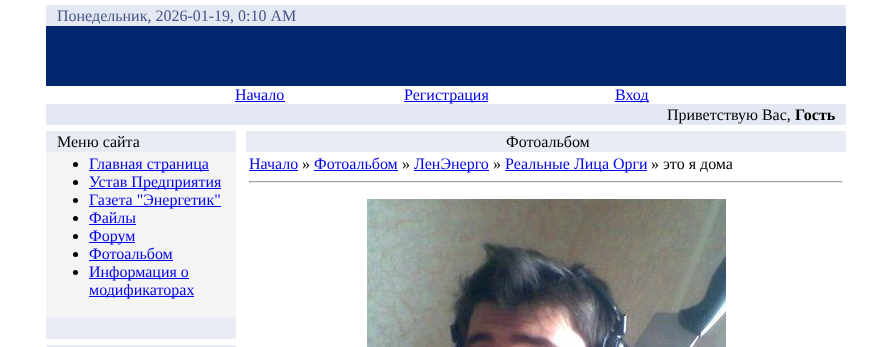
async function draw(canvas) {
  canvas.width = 892;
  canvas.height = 347;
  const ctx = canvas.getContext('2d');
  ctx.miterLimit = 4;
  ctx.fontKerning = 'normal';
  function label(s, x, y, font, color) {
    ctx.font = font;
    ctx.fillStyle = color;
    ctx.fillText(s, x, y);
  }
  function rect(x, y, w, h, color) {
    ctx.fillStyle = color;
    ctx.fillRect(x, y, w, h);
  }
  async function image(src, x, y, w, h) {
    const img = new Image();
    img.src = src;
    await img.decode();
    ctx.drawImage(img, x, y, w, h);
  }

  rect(0, 0, 892, 347, '#fff');
  rect(46, 5, 800, 21, '#e4e8f3');
  label('Понедельник, 2026-01-19, 0:10 AM', 57, 21, '16px Liberation Serif', '#458');
  rect(46, 26, 800, 60, '#03276e');
  label('Начало', 235, 100, '16px Liberation Serif', '#00e');
  rect(235, 101, 50, 1, '#00e');
  rect(404, 101, 84, 1, '#00e');
  label('Регистрация', 404, 100, '16px Liberation Serif', '#00e');
  rect(615, 101, 34, 1, '#00e');
  label('Вход', 615, 100, '16px Liberation Serif', '#00e');
  rect(46, 104, 800, 21, '#e4e8f3');
  label('Приветствую Вас,', 667, 120, '16px Liberation Serif', '#000');
  label('Гость', 795, 120, 'bold 16px Liberation Serif', '#000');
  rect(46, 131, 190, 21, '#e9ecf5');
  label('Меню сайта', 57, 147, '16px Liberation Serif', '#000');
  rect(46, 152, 190, 166, '#f4f4f4');
  ctx.fillStyle = '#000';
  ctx.beginPath();
  ctx.arc(75.5, 164.5, 2.5, 0, 2 * Math.PI);
  ctx.fill();
  rect(89, 170, 120, 1, '#00e');
  label('Главная страница', 89, 169, '16px Liberation Serif', '#00e');
  ctx.fillStyle = '#000';
  ctx.beginPath();
  ctx.arc(75.5, 182.5, 2.5, 0, 2 * Math.PI);
  ctx.fill();
  rect(89, 188, 132, 1, '#00e');
  label('Устав Предприятия', 89, 187, '16px Liberation Serif', '#00e');
  ctx.fillStyle = '#000';
  ctx.beginPath();
  ctx.arc(75.5, 200.5, 2.5, 0, 2 * Math.PI);
  ctx.fill();
  rect(89, 206, 132, 1, '#00e');
  label('Газета "Энергетик"', 89, 205, '16px Liberation Serif', '#00e');
  ctx.fillStyle = '#000';
  ctx.beginPath();
  ctx.arc(75.5, 218.5, 2.5, 0, 2 * Math.PI);
  ctx.fill();
  label('Файлы', 89, 223, '16px Liberation Serif', '#00e');
  rect(89, 224, 47, 1, '#00e');
  ctx.fillStyle = '#000';
  ctx.beginPath();
  ctx.arc(75.5, 236.5, 2.5, 0, 2 * Math.PI);
  ctx.fill();
  rect(89, 242, 46, 1, '#00e');
  label('Форум', 89, 241, '16px Liberation Serif', '#00e');
  ctx.fillStyle = '#000';
  ctx.beginPath();
  ctx.arc(75.5, 254.5, 2.5, 0, 2 * Math.PI);
  ctx.fill();
  label('Фотоальбом', 89, 259, '16px Liberation Serif', '#00e');
  rect(89, 260, 84, 1, '#00e');
  ctx.fillStyle = '#000';
  ctx.beginPath();
  ctx.arc(75.5, 272.5, 2.5, 0, 2 * Math.PI);
  ctx.fill();
  rect(89, 278, 100, 1, '#00e');
  label('Информация о', 89, 277, '16px Liberation Serif', '#00e');
  rect(89, 296, 105, 1, '#00e');
  label('модификаторах', 89, 295, '16px Liberation Serif', '#00e');
  rect(46, 318, 190, 21, '#e9ecf5');
  rect(46, 345, 190, 2, '#e9ecf5');
  rect(246, 131, 600, 21, '#e9ecf5');
  label('Фотоальбом', 506, 147, '16px Liberation Serif', '#000');
  label('Начало', 249, 169, '16px Liberation Serif', '#00e');
  rect(249, 170, 49, 1, '#00e');
  label('»', 302, 169, '16px Liberation Serif', '#000');
  label('Фотоальбом', 314, 169, '16px Liberation Serif', '#00e');
  rect(314, 170, 84, 1, '#00e');
  label('»', 402, 169, '16px Liberation Serif', '#000');
  rect(414, 170, 75, 1, '#00e');
  label('ЛенЭнерго', 414, 169, '16px Liberation Serif', '#00e');
  label('»', 493, 169, '16px Liberation Serif', '#000');
  rect(505, 170, 142, 1, '#00e');
  label('Реальные Лица Орги', 505, 169, '16px Liberation Serif', '#00e');
  label('» это я дома', 651, 169, '16px Liberation Serif', '#000');
  rect(249, 181, 594, 1, '#9f9f9f');
  rect(842, 181, 1, 2, '#eee');
  rect(249, 182, 594, 1, '#eee');
  rect(249, 181, 1, 2, '#9f9f9f');
  await image('assets/img1.png', 367, 199, 359, 148);
}

draw(document.querySelector('canvas'));
